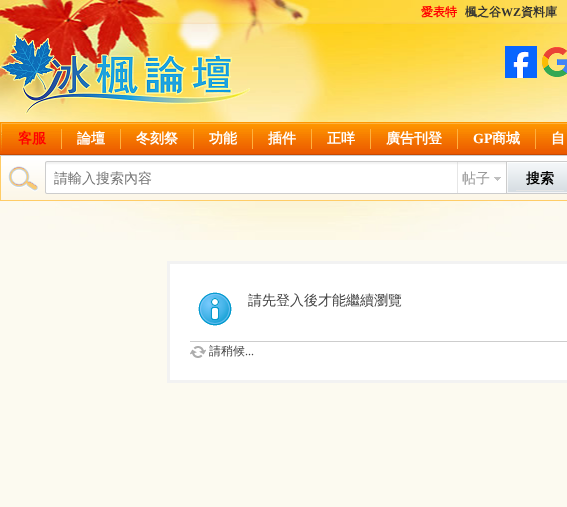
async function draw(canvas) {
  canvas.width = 567;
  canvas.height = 507;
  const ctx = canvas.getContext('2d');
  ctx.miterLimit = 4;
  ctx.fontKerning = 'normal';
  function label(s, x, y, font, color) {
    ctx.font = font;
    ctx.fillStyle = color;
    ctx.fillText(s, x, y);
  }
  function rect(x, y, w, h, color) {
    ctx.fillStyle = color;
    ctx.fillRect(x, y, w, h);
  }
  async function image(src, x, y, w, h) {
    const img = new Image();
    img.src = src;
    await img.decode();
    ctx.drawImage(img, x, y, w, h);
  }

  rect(0, 0, 567, 507, '#fcfaf0');
  await image('assets/img1.png', 0, 0, 567, 240);
  label('愛表特', 421, 16, 'bold 12px WenQuanYi Zen Hei', '#f00');
  label('楓之谷', 465, 16, 'bold 12px WenQuanYi Zen Hei', '#333');
  label('WZ', 501, 16, 'bold 12px Liberation Serif', '#333');
  label('資料庫', 521, 16, 'bold 12px WenQuanYi Zen Hei', '#333');
  await image('assets/img2.png', 0, 34, 250, 80);
  await image('assets/img3.png', 505, 46, 32, 32);
  await image('assets/img4.png', 542, 47, 25, 30);
  rect(0, 122, 567, 1, '#fe9500');
  await image('assets/img5.png', 0, 123, 567, 32);
  rect(61, 129, 1, 20, '#feb140');
  label('客服', 18, 143, 'bold 14px WenQuanYi Zen Hei', '#f00');
  rect(120, 129, 1, 20, '#feb140');
  label('論壇', 77, 143, 'bold 14px WenQuanYi Zen Hei', '#fff');
  rect(193, 129, 1, 20, '#feb140');
  label('冬刻祭', 136, 143, 'bold 14px WenQuanYi Zen Hei', '#fff');
  rect(252, 129, 1, 20, '#feb140');
  label('功能', 209, 143, 'bold 14px WenQuanYi Zen Hei', '#fff');
  rect(311, 129, 1, 20, '#feb140');
  label('插件', 268, 143, 'bold 14px WenQuanYi Zen Hei', '#fff');
  rect(370, 129, 1, 20, '#feb140');
  label('正咩', 327, 143, 'bold 14px WenQuanYi Zen Hei', '#fff');
  rect(457, 129, 1, 20, '#feb140');
  label('廣告刊登', 386, 143, 'bold 14px WenQuanYi Zen Hei', '#fff');
  rect(535, 129, 1, 20, '#feb040f0');
  label('GP', 473, 143, 'bold 14px Liberation Serif', '#fff');
  label('商城', 492, 143, 'bold 14px WenQuanYi Zen Hei', '#fff');
  label('自', 551, 143, 'bold 14px WenQuanYi Zen Hei', '#fff');
  rect(0, 155, 567, 1, '#cdcdcd');
  await image('assets/img6.png', 1, 156, 566, 44);
  rect(0, 200, 567, 1, '#fc6');
  rect(0, 156, 1, 45, '#fc6');
  await image('assets/img7.png', 8, 161, 43, 33);
  await image('assets/img8.png', 51, 161, 406, 33);
  label('請輸入搜索內容', 54, 183, '500 14px WenQuanYi Zen Hei', '#757575');
  await image('assets/img9.png', 457, 161, 49, 33);
  await image('assets/img10.png', 494, 177, 7, 4);
  label('帖子', 462, 183, '500 14px WenQuanYi Zen Hei', '#999');
  await image('assets/img11.png', 506, 161, 61, 33);
  rect(516, 190, 48, 1, '#e5e5e5');
  label('搜索', 526, 183, 'bold 14px WenQuanYi Zen Hei', '#000');
  ctx.fillStyle = '#fff';
  ctx.beginPath();
  ctx.rect(168.5, 262.5, 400, 119);
  ctx.fill();
  ctx.strokeStyle = '#f2f2f2';
  ctx.lineWidth = 3;
  ctx.stroke();
  await image('assets/img12.png', 198, 292, 34, 34);
  label('請先登入後才能繼續瀏覽', 248, 305, '500 14px WenQuanYi Zen Hei', '#444');
  rect(190, 341, 377, 1, '#cdcdcd');
  await image('assets/img13.png', 190, 346, 16, 12);
  label('請稍候', 209, 355, '500 12px WenQuanYi Zen Hei', '#444');
  label('...', 245, 355, '12px Liberation Serif', '#444');
}

draw(document.querySelector('canvas'));
